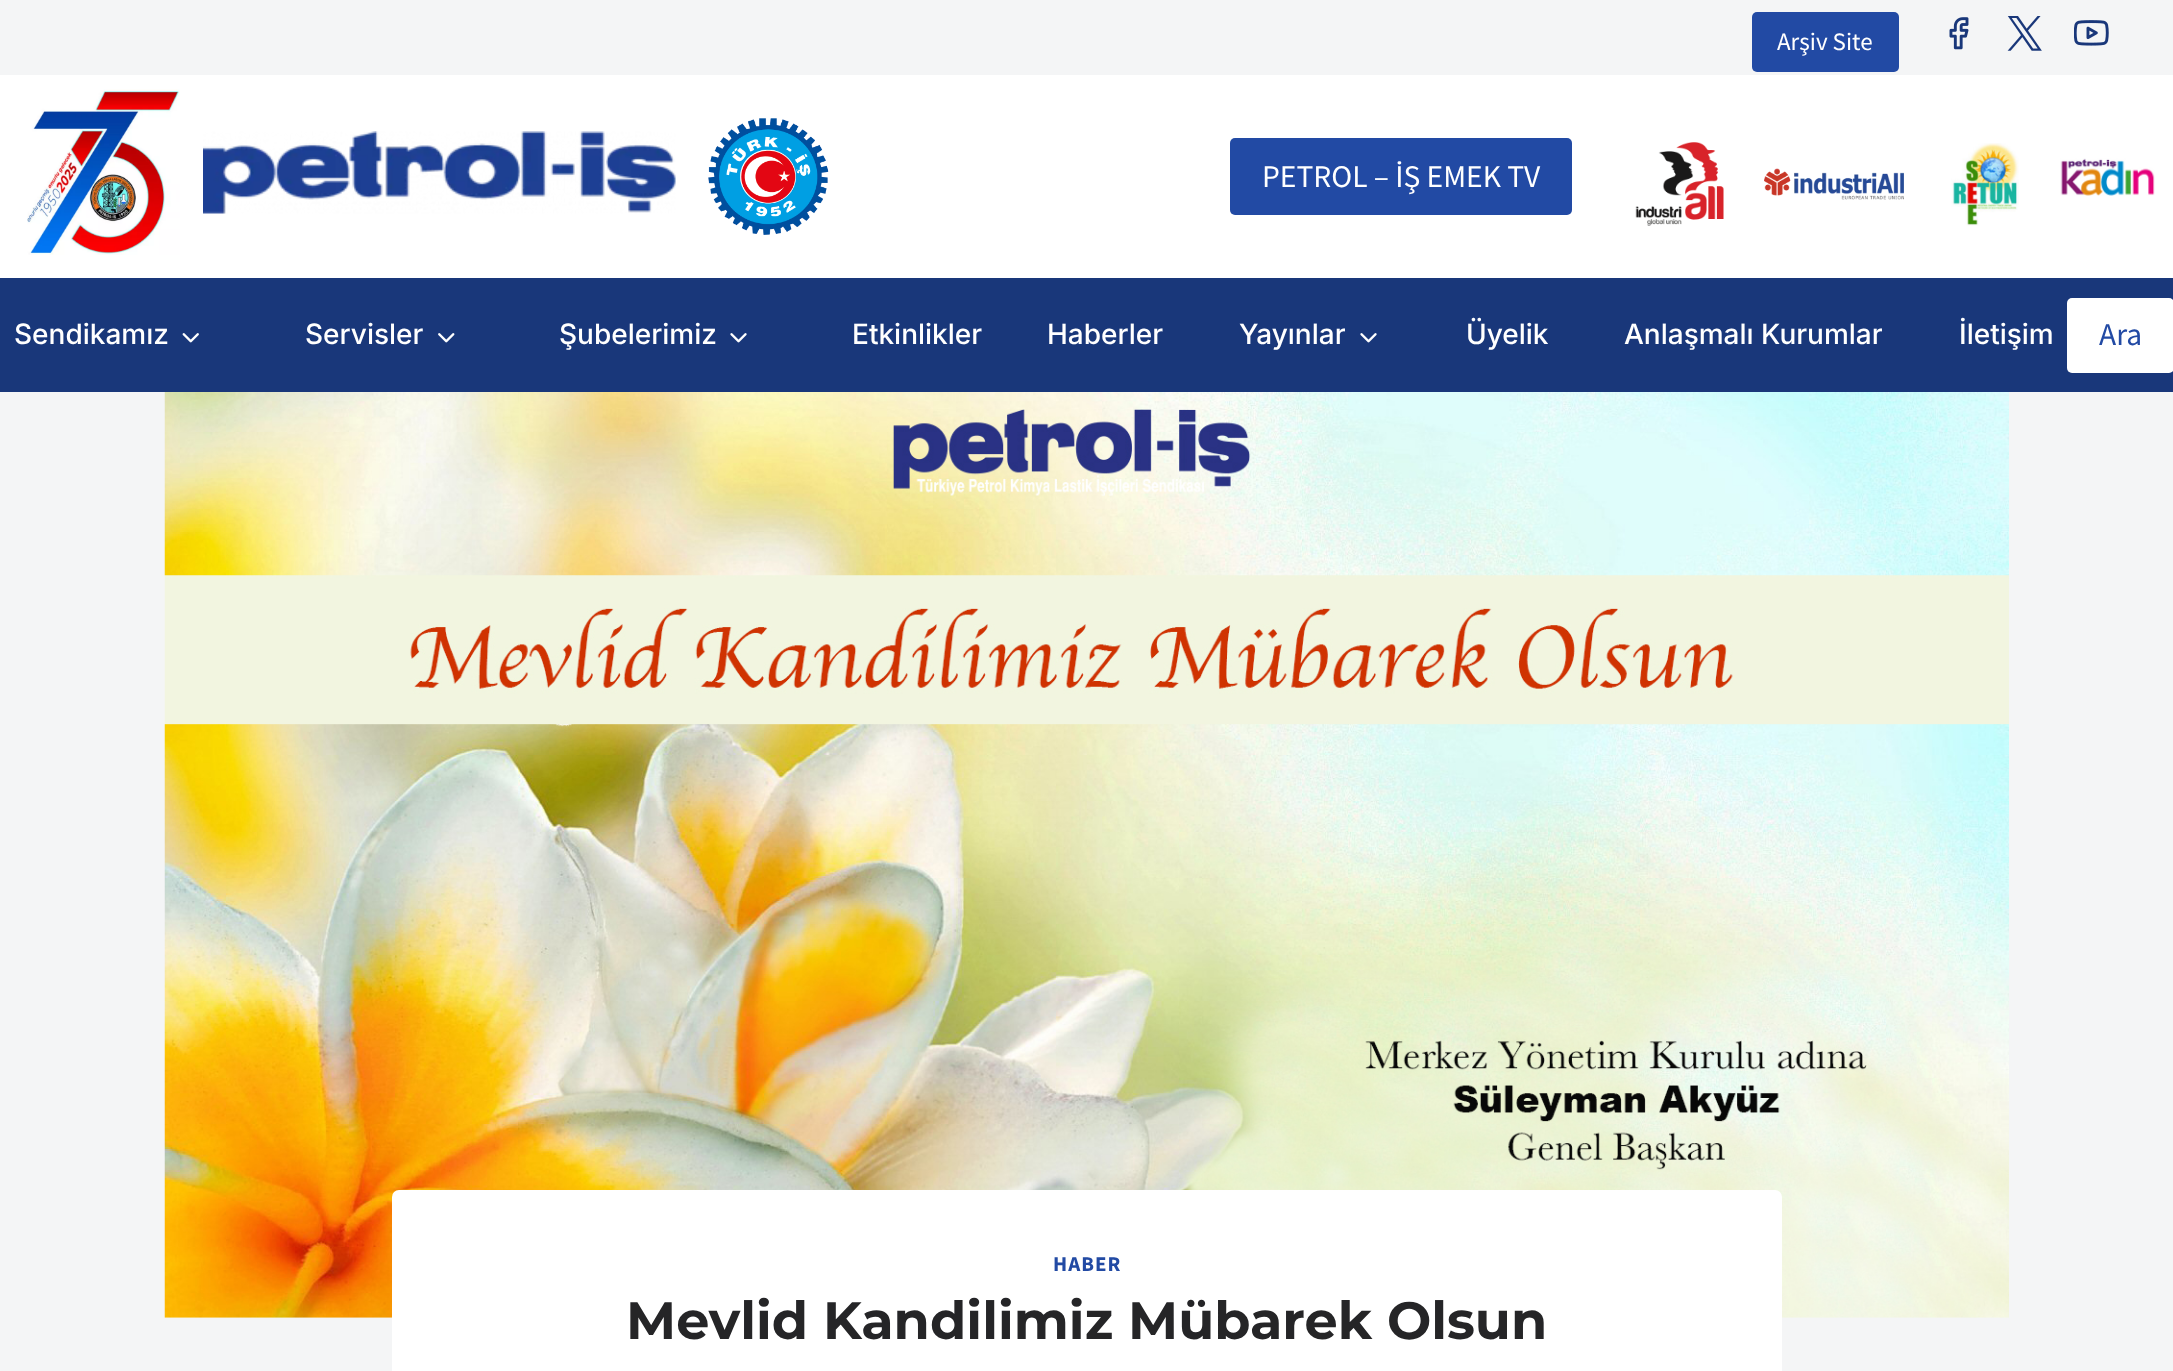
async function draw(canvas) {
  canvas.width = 2173;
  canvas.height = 1371;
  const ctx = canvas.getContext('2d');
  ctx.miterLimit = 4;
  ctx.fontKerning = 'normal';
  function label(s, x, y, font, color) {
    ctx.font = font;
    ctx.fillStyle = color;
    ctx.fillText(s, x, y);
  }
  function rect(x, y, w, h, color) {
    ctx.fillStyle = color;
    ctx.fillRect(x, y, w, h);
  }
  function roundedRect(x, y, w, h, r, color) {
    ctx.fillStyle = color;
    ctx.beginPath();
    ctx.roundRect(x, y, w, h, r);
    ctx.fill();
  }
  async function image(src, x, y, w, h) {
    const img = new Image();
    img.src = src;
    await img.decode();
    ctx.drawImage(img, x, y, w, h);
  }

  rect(0, 0, 2173, 1371, '#f4f5f6');
  roundedRect(1752, 12, 147, 60, 5, '#224aa4');
  label('Arşiv Site', 1777, 50, '25px Source Sans Pro', '#fff');
  await image('assets/img1.png', 1949, 17, 20, 33);
  await image('assets/img2.png', 2007, 16, 35, 35);
  await image('assets/img3.png', 2074, 20, 35, 26);
  rect(0, 75, 2173, 203, '#fff');
  await image('assets/img4.png', 27, 89, 153, 166);
  await image('assets/img5.png', 203, 131, 473, 83);
  await image('assets/img6.png', 708, 118, 121, 117);
  roundedRect(1230, 138, 342, 77, 5, '#224aa4');
  label('PETROL – İŞ EMEK TV', 1262, 187, '31.5px Source Sans Pro', '#fff');
  await image('assets/img7.png', 1635, 142, 89, 84);
  await image('assets/img8.png', 1764, 168, 140, 32);
  await image('assets/img9.png', 1951, 143, 68, 83);
  await image('assets/img10.png', 2060, 158, 95, 38);
  rect(0, 278, 2173, 114, '#19377a');
  label('Sendikamız', 14, 344, '500 28px Inter', '#fff');
  await image('assets/img11.png', 182, 333, 17, 10);
  label('Servisler', 305, 344, '500 28px Inter', '#fff');
  await image('assets/img12.png', 438, 333, 17, 10);
  label('Şubelerimiz', 559, 344, '500 28px Inter', '#fff');
  await image('assets/img13.png', 730, 333, 17, 10);
  label('Etkinlikler', 852, 344, '500 28px Inter', '#fff');
  label('Haberler', 1047, 344, '500 28px Inter', '#fff');
  label('Yayınlar', 1239, 344, '500 28px Inter', '#fff');
  await image('assets/img13.png', 1360, 333, 17, 10);
  label('Üyelik', 1466, 344, '500 28px Inter', '#fff');
  label('Anlaşmalı Kurumlar', 1624, 344, '500 28px Inter', '#fff');
  label('İletişim', 1959, 344, '500 28px Inter', '#fff');
  roundedRect(2067, 298, 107, 75, 5, '#fff');
  label('Ara', 2099, 345, '31.5px Source Sans Pro', '#224aa4');
  await image('assets/img14.png', 164, 392, 1845, 926);
  roundedRect(392, 1190, 1390, 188, 7, '#fff');
  ctx.letterSpacing = '1px';
  label('HABER', 1053, 1271, 'bold 21px Source Sans Pro', '#224aa4');
  ctx.letterSpacing = '0px';
  label('Mevlid Kandilimiz Mübarek Olsun', 626, 1339, 'bold 52.5px Montserrat', '#252527');
}

draw(document.querySelector('canvas'));
